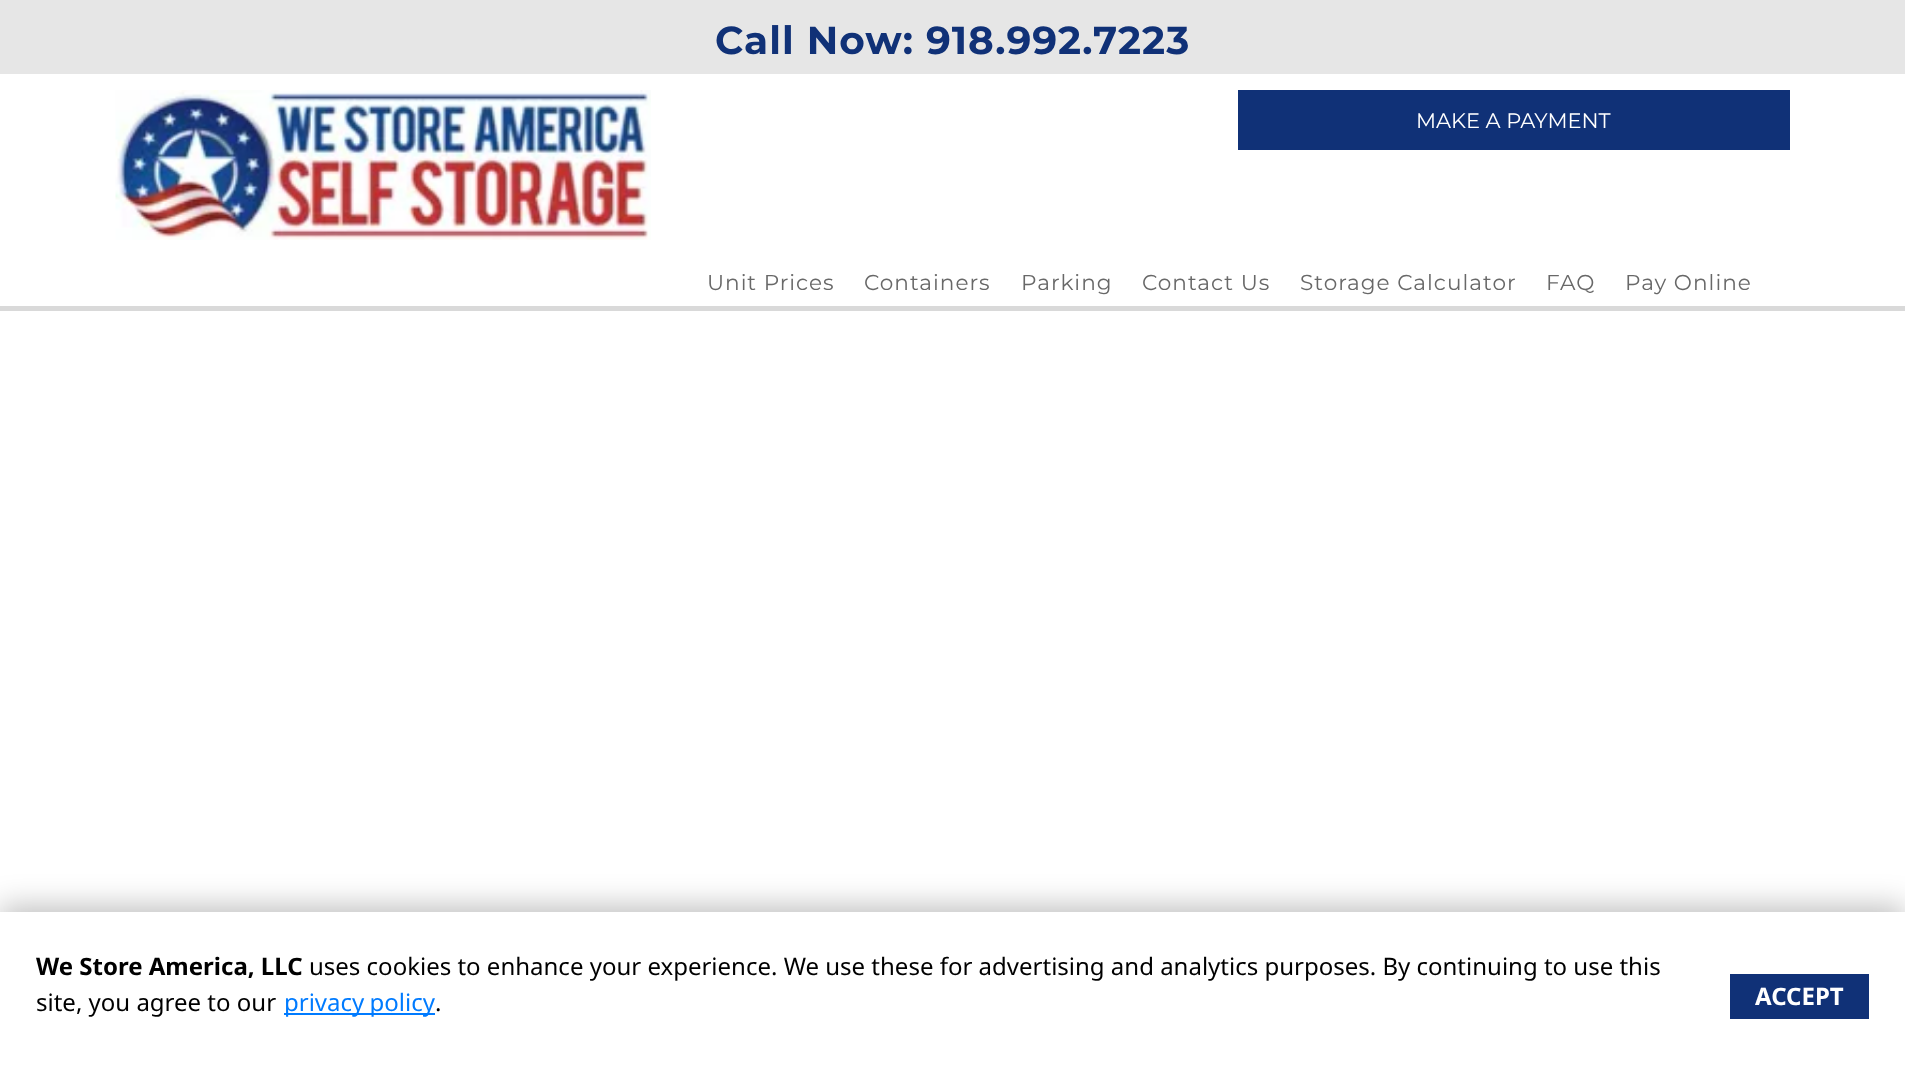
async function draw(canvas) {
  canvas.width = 1905;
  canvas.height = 1080;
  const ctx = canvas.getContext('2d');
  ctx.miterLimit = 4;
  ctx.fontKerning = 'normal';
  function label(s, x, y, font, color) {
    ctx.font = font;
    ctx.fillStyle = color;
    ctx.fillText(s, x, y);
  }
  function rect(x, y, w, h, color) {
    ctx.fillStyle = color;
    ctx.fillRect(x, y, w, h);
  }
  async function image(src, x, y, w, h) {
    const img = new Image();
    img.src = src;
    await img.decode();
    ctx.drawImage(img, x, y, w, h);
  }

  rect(0, 0, 1905, 1080, '#fff');
  rect(0, 0, 1905, 74, '#e6e6e6');
  ctx.letterSpacing = '1px';
  label('Call Now: 918.992.7223', 715, 54, 'bold 39px Montserrat', '#103177');
  await image('assets/img1.png', 115, 90, 536, 150);
  rect(1238, 90, 552, 60, '#103177');
  ctx.letterSpacing = '0px';
  label('MAKE A PAYMENT', 1416, 128, '21px Montserrat', '#fff');
  rect(0, 306, 1905, 5, '#d9d9d9');
  ctx.letterSpacing = '1px';
  label('Unit Prices', 707, 290, '21.6px Montserrat', '#686868');
  label('Containers', 864, 290, '21.6px Montserrat', '#686868');
  label('Parking', 1021, 290, '21.6px Montserrat', '#686868');
  label('Contact Us', 1142, 290, '21.6px Montserrat', '#686868');
  label('Storage Calculator', 1300, 290, '21.6px Montserrat', '#686868');
  label('FAQ', 1546, 290, '21.6px Montserrat', '#686868');
  label('Pay Online', 1625, 290, '21.6px Montserrat', '#686868');
  ctx.fillStyle = '#00000040';
  ctx.filter = 'blur(15px)';
  ctx.beginPath();
  ctx.rect(0, 906, 1905, 168);
  ctx.fill();
  ctx.filter = 'none';
  rect(0, 912, 1905, 168, '#fff');
  ctx.letterSpacing = '0px';
  label('We Store America, LLC', 36, 975, 'bold 24px Noto Sans', '#000');
  label('uses cookies to enhance your experience. We use these for advertising and analytics purposes. By continuing to use this', 309, 975, '24px Noto Sans', '#000');
  label('site, you agree to our', 36, 1011, '24px Noto Sans', '#000');
  rect(284, 1013, 151, 2, '#007bff');
  ctx.wordSpacing = '-1px';
  label('privacy policy', 284, 1011, '24px Noto Sans', '#007bff');
  ctx.wordSpacing = '0px';
  label('.', 435, 1011, '24px Noto Sans', '#000');
  rect(1730, 974, 139, 45, '#103177');
  label('ACCEPT', 1755, 1005, 'bold 24px Noto Sans', '#fff');
}

draw(document.querySelector('canvas'));
